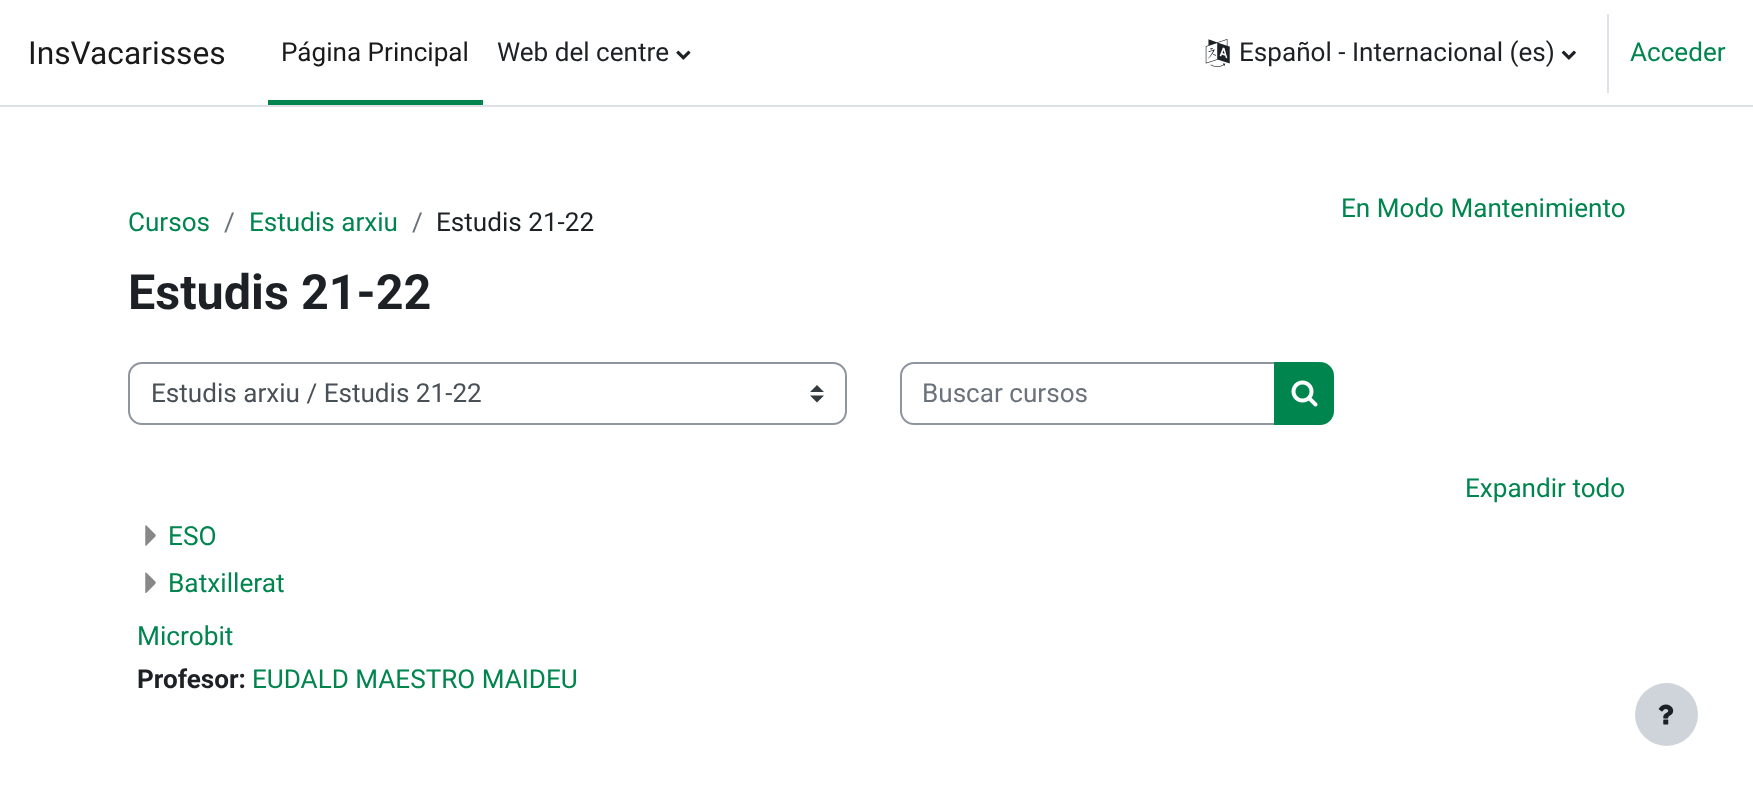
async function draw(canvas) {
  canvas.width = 1753;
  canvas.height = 801;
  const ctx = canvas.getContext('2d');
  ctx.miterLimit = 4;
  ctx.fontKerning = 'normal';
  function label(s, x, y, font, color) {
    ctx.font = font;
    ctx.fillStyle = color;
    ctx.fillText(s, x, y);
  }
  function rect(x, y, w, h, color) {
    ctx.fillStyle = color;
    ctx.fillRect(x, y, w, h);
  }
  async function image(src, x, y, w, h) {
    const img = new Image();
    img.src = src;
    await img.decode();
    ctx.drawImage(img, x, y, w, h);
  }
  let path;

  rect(0, 0, 1753, 801, '#fff');
  rect(0, 105, 1753, 2, '#dee2e6');
  label('InsVacarisses', 28, 64, '31.75px Roboto', '#1a1a1a');
  rect(268, 100, 215, 5, '#00854e');
  label('Página Principal', 281, 61, '26.1px Roboto', '#1a1a1a');
  label('Web del centre', 497, 61, '26.1px Roboto', '#1d2125');
  await image('assets/img1.png', 676, 50, 15, 10);
  await image('assets/img2.png', 1205, 39, 25, 28);
  label('Español - Internacional (es)', 1239, 61, '26.1px Roboto', '#1d2125');
  await image('assets/img3.png', 1561, 50, 15, 10);
  rect(1607, 14, 2, 79, '#dee2e6');
  label('Acceder', 1630, 61, '26.1px Roboto', '#00854e');
  label('En Modo Mantenimiento', 1341, 217, '26.1px Roboto', '#00854e');
  label('Cursos', 128, 231, '26.1px Roboto', '#00854e');
  label('/', 224, 231, '26.1px Roboto', '#6a737b');
  label('Estudis arxiu', 249, 231, '26.1px Roboto', '#00854e');
  label('/', 412, 231, '26.1px Roboto', '#6a737b');
  label('Estudis 21-22', 436, 231, '26.1px Roboto', '#1d2125');
  label('Estudis 21-22', 128, 309, 'bold 48.5px Roboto', '#1d2125');
  ctx.fillStyle = '#343a40';
  path = new Path2D('M817 385L810 392H824ZM817 402.5L810 395.5H824Z');
  ctx.fill(path);
  ctx.beginPath();
  ctx.roundRect(129, 363, 717, 61, 13);
  ctx.strokeStyle = '#8f959e';
  ctx.lineWidth = 2;
  ctx.stroke();
  label('Estudis arxiu / Estudis 21-22', 151, 402, '26.1px Roboto', '#495057');
  ctx.beginPath();
  ctx.roundRect(901, 363, 374, 61, [13, 0, 0, 13]);
  ctx.stroke();
  label('Buscar cursos', 922, 402, '26.1px Roboto', '#6a737b');
  ctx.fillStyle = '#00854e';
  ctx.beginPath();
  ctx.roundRect(1275, 363, 58, 61, [0, 13, 13, 0]);
  ctx.fill();
  ctx.strokeStyle = '#00854e';
  ctx.stroke();
  await image('assets/img4.png', 1291, 380, 27, 27);
  label('Expandir todo', 1465, 497, '26.1px Roboto', '#00854e');
  await image('assets/img5.png', 145, 525, 11, 21);
  label('ESO', 168, 545, '26.25px Roboto', '#00854e');
  await image('assets/img6.png', 145, 572, 11, 21);
  label('Batxillerat', 168, 592, '26.25px Roboto', '#00854e');
  label('Microbit', 137, 645, '26.25px Roboto', '#00854e');
  label('Profesor:', 137, 688, 'bold 26.1px Roboto', '#1d2125');
  label('EUDALD MAESTRO MAIDEU', 252, 688, '26.1px Roboto', '#00854e');
  ctx.fillStyle = '#ced4da';
  ctx.beginPath();
  ctx.arc(1666.5, 714.5, 31.5, 0, 2 * Math.PI);
  ctx.fill();
  await image('assets/img7.png', 1658, 704, 16, 21);
}

draw(document.querySelector('canvas'));
